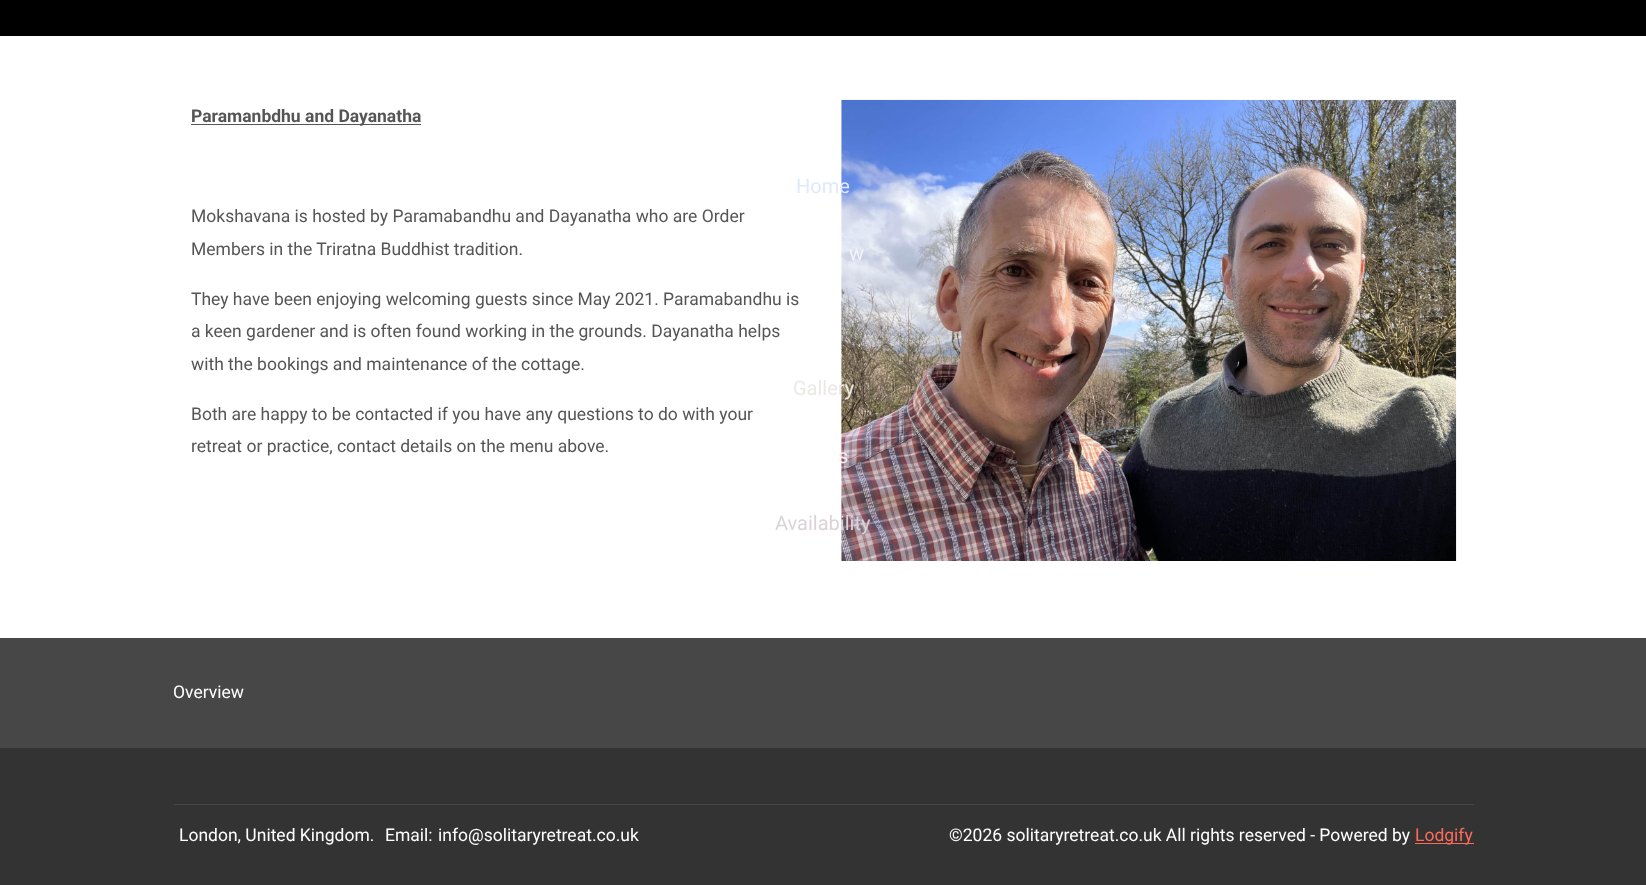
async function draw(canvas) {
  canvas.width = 1646;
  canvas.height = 885;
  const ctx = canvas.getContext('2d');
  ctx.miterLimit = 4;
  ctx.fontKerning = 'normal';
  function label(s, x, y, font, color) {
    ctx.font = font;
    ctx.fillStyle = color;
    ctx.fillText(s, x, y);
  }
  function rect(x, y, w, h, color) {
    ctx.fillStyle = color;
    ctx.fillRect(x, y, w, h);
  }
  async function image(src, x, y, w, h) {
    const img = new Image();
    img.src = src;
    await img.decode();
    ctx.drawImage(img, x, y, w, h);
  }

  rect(0, 0, 1646, 885, '#fff');
  rect(191, 124, 230, 1, '#555');
  label('Paramanbdhu and Dayanatha', 191, 122, 'bold 17.5px Roboto', '#555');
  label('Mokshavana is hosted by Paramabandhu and Dayanatha who are Order', 191, 222, '17.5px Roboto', '#555');
  label('Members in the Triratna Buddhist tradition.', 191, 255, '17.5px Roboto', '#555');
  label('They have been enjoying welcoming guests since May 2021. Paramabandhu is', 191, 305, '17.5px Roboto', '#555');
  label('a keen gardener and is often found working in the grounds. Dayanatha helps', 191, 337, '17.5px Roboto', '#555');
  label('with the bookings and maintenance of the cottage.', 191, 370, '17.5px Roboto', '#555');
  label('Both are happy to be contacted if you have any questions to do with your', 191, 420, '17.5px Roboto', '#555');
  label('retreat or practice, contact details on the menu above.', 191, 452, '17.5px Roboto', '#555');
  await image('assets/img1.png', 841, 99, 616, 462);
  rect(0, 0, 1646, 36, '#000');
  label('Home', 796, 193, '20px Roboto', '#e1e8fa');
  label('w', 849, 260, '20px Roboto', '#f4f5f9');
  label('Gallery', 793, 395, '20px Roboto', '#ebe9e4');
  label('s', 838, 463, '20px Roboto', '#f3eff1');
  label('Availability', 775, 530, '20px Roboto', '#dbd3d8');
  rect(0, 638, 1646, 110, '#474747');
  label('Overview', 173, 698, '17.5px Roboto', '#fff');
  rect(0, 748, 1646, 137, '#333');
  rect(174, 803, 1300, 1, '#303131');
  rect(174, 804, 1300, 1, '#474747');
  label('London, United Kingdom.', 179, 841, '17.5px Roboto', '#fff');
  label('Email:', 385, 841, '17.5px Roboto', '#fff');
  label('info@solitaryretreat.co.uk', 438, 841, '17.5px Roboto', '#fff');
  label('©2026 solitaryretreat.co.uk All rights reserved - Powered by', 949, 841, '17.5px Roboto', '#fff');
  rect(1415, 843, 59, 1, '#ff6b5a');
  label('Lodgify', 1415, 841, '17.5px Roboto', '#ff6b5a');
}

draw(document.querySelector('canvas'));
